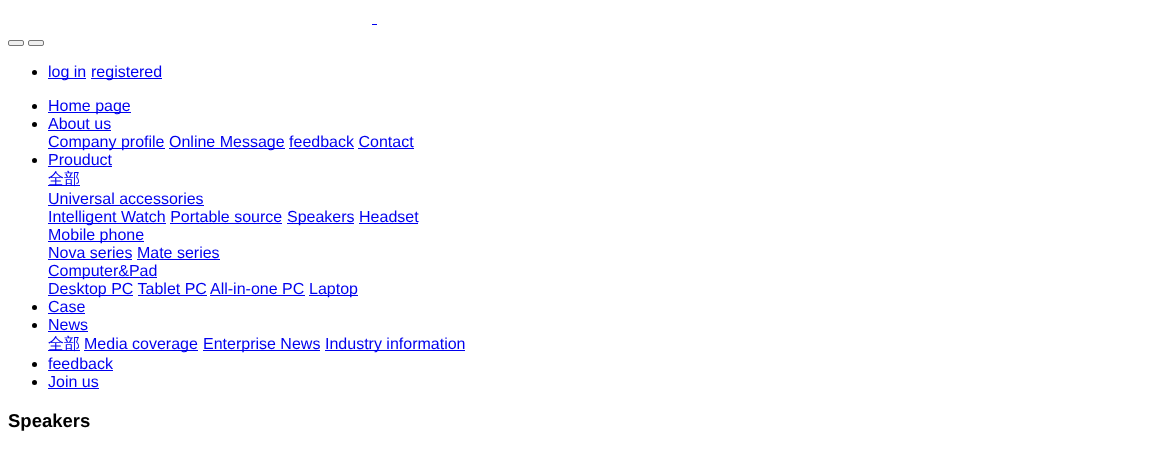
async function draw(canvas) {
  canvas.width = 1173;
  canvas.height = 450;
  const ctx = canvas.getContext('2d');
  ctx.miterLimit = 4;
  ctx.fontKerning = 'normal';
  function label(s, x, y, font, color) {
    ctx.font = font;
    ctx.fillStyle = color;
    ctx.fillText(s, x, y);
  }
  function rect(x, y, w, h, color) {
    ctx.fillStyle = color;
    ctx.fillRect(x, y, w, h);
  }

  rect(0, 0, 1173, 450, '#fff');
  rect(372, 24, 5, 1, '#00e');
  ctx.fillStyle = '#efefef';
  ctx.beginPath();
  ctx.roundRect(8.5, 40.5, 15, 5, 1.5);
  ctx.fill();
  ctx.strokeStyle = '#767676';
  ctx.stroke();
  ctx.beginPath();
  ctx.roundRect(28.5, 40.5, 15, 5, 1.5);
  ctx.fill();
  ctx.stroke();
  ctx.fillStyle = '#000';
  ctx.beginPath();
  ctx.arc(34.5, 72.5, 2.5, 0, 2 * Math.PI);
  ctx.fill();
  rect(48, 78, 38, 1, '#00e');
  label('log in', 48, 77, '16px Liberation Sans', '#00e');
  rect(91, 78, 71, 1, '#00e');
  label('registered', 91, 77, '16px Liberation Sans', '#00e');
  ctx.fillStyle = '#000';
  ctx.beginPath();
  ctx.arc(34.5, 106.5, 2.5, 0, 2 * Math.PI);
  ctx.fill();
  rect(48, 112, 83, 1, '#00e');
  label('Home page', 48, 111, '16px Liberation Sans', '#00e');
  ctx.fillStyle = '#000';
  ctx.beginPath();
  ctx.arc(34.5, 124.5, 2.5, 0, 2 * Math.PI);
  ctx.fill();
  label('About us', 48, 129, '16px Liberation Sans', '#00e');
  rect(48, 130, 63, 1, '#00e');
  rect(48, 148, 117, 1, '#00e');
  label('Company profile', 48, 147, '16px Liberation Sans', '#00e');
  rect(169, 148, 116, 1, '#00e');
  label('Online Message feedback Contact', 169, 147, '16px Liberation Sans', '#00e');
  rect(289, 148, 65, 1, '#00e');
  rect(358, 148, 56, 1, '#00e');
  ctx.fillStyle = '#000';
  ctx.beginPath();
  ctx.arc(34.5, 160.5, 2.5, 0, 2 * Math.PI);
  ctx.fill();
  label('Prouduct', 48, 165, '16px Liberation Sans', '#00e');
  rect(48, 166, 64, 1, '#00e');
  rect(48, 185, 32, 1, '#00e');
  label('全部', 48, 184, '500 16px WenQuanYi Zen Hei', '#00e');
  label('Universal accessories', 48, 204, '16px Liberation Sans', '#00e');
  rect(48, 205, 156, 1, '#00e');
  rect(48, 223, 118, 1, '#00e');
  label('Intelligent Watch Portable source', 48, 222, '16px Liberation Sans', '#00e');
  rect(287, 223, 67, 1, '#00e');
  label('Speakers Headset', 287, 222, '16px Liberation Sans', '#00e');
  rect(170, 223, 112, 1, '#00e');
  rect(359, 223, 59, 1, '#00e');
  rect(48, 241, 96, 1, '#00e');
  label('Mobile phone', 48, 240, '16px Liberation Sans', '#00e');
  label('Nova series Mate series', 48, 258, '16px Liberation Sans', '#00e');
  rect(48, 259, 84, 1, '#00e');
  rect(137, 259, 83, 1, '#00e');
  rect(48, 277, 109, 1, '#00e');
  label('Computer&Pad', 48, 276, '16px Liberation Sans', '#00e');
  rect(48, 295, 85, 1, '#00e');
  label('Desktop PC Tablet PC', 48, 294, '16px Liberation Sans', '#00e');
  label('All-in-one PC', 210, 294, '16px Liberation Sans', '#00e');
  rect(210, 295, 95, 1, '#00e');
  rect(309, 295, 49, 1, '#00e');
  label('Laptop', 309, 294, '16px Liberation Sans', '#00e');
  rect(138, 295, 69, 1, '#00e');
  ctx.fillStyle = '#000';
  ctx.beginPath();
  ctx.arc(34.5, 307.5, 2.5, 0, 2 * Math.PI);
  ctx.fill();
  label('Case', 48, 312, '16px Liberation Sans', '#00e');
  rect(48, 313, 37, 1, '#00e');
  ctx.fillStyle = '#000';
  ctx.beginPath();
  ctx.arc(34.5, 325.5, 2.5, 0, 2 * Math.PI);
  ctx.fill();
  label('News', 48, 330, '16px Liberation Sans', '#00e');
  rect(48, 331, 40, 1, '#00e');
  rect(48, 350, 32, 1, '#00e');
  label('全部', 48, 349, '500 16px WenQuanYi Zen Hei', '#00e');
  rect(84, 350, 114, 1, '#00e');
  label('Media coverage', 84, 349, '16px Liberation Sans', '#00e');
  rect(203, 350, 117, 1, '#00e');
  label('Enterprise News', 203, 349, '16px Liberation Sans', '#00e');
  rect(325, 350, 140, 1, '#00e');
  label('Industry information', 325, 349, '16px Liberation Sans', '#00e');
  ctx.fillStyle = '#000';
  ctx.beginPath();
  ctx.arc(34.5, 364.5, 2.5, 0, 2 * Math.PI);
  ctx.fill();
  label('feedback', 48, 369, '16px Liberation Sans', '#00e');
  rect(48, 370, 65, 1, '#00e');
  ctx.fillStyle = '#000';
  ctx.beginPath();
  ctx.arc(34.5, 382.5, 2.5, 0, 2 * Math.PI);
  ctx.fill();
  label('Join us', 48, 387, '16px Liberation Sans', '#00e');
  rect(48, 388, 51, 1, '#00e');
  label('Speakers', 8, 427, 'bold 18.5px Liberation Sans', '#000');
}

draw(document.querySelector('canvas'));
